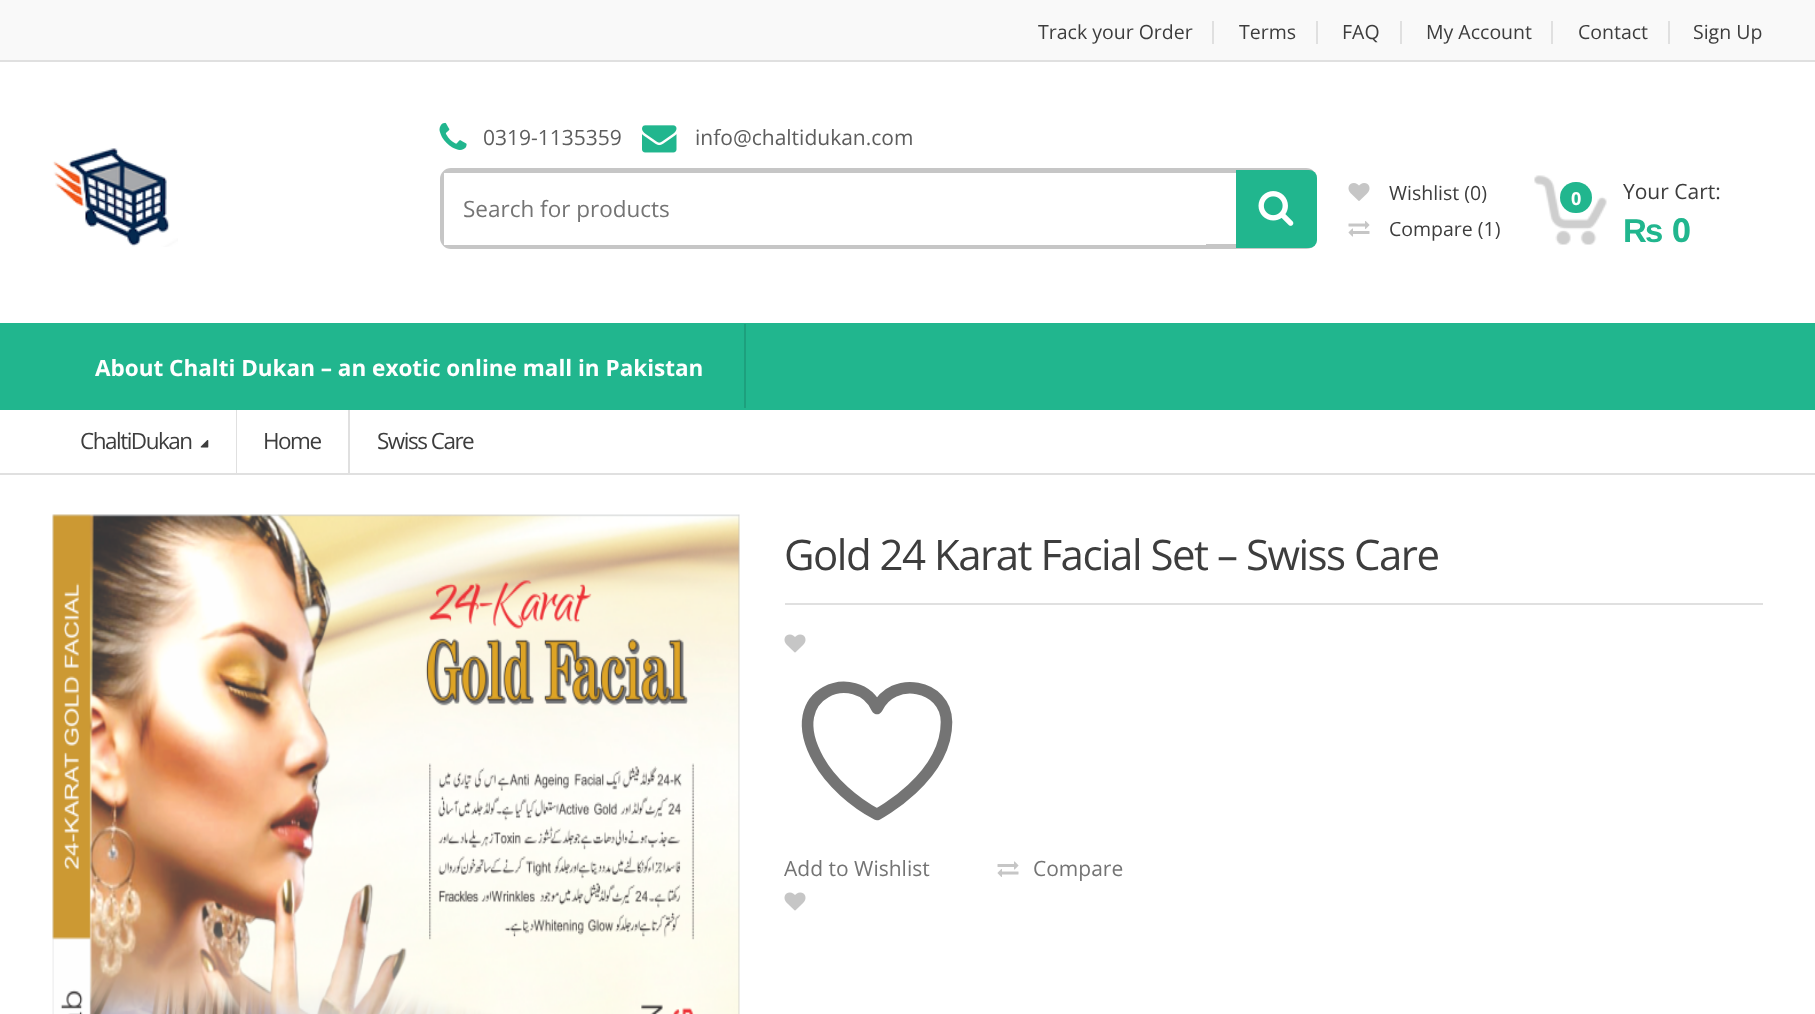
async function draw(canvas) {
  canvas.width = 1815;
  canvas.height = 1014;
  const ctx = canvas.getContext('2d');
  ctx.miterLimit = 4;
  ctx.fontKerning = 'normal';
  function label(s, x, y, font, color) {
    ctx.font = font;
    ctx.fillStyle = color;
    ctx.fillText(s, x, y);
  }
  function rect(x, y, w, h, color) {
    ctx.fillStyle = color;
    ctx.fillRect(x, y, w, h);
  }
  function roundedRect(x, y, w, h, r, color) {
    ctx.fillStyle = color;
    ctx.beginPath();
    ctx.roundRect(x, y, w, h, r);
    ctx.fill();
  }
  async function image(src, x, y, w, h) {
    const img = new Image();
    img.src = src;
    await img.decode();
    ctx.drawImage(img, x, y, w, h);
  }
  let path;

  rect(0, 0, 1815, 1014, '#fff');
  rect(0, 0, 1815, 60, '#f9f9f9');
  rect(0, 60, 1815, 2, '#e0e0e0');
  rect(1212, 21, 2, 23, '#e0e0e0');
  label('Track your Order', 1038, 39, '19.5px Open Sans', '#3d3d3d');
  rect(1316, 21, 2, 23, '#e0e0e0');
  label('Terms', 1239, 39, '19.5px Open Sans', '#3d3d3d');
  rect(1400, 21, 2, 23, '#e0e0e0');
  label('FAQ', 1342, 39, '19.5px Open Sans', '#3d3d3d');
  rect(1551, 21, 2, 23, '#e0e0e0');
  label('My Account', 1426, 39, '19.5px Open Sans', '#3d3d3d');
  rect(1668, 21, 2, 23, '#e0e0e0');
  label('Contact', 1578, 39, '19.5px Open Sans', '#3d3d3d');
  label('Sign Up', 1693, 39, '19.5px Open Sans', '#3d3d3d');
  await image('assets/img1.png', 52, 148, 126, 99);
  await image('assets/img2.png', 439, 122, 28, 28);
  label('0319-1135359', 483, 145, '21px Open Sans', '#5d5d5d');
  await image('assets/img3.png', 642, 125, 35, 28);
  label('info@chaltidukan.com', 695, 145, '21px Open Sans', '#5d5d5d');
  ctx.beginPath();
  ctx.roundRect(442.5, 170.5, 872, 76, 8.5);
  ctx.strokeStyle = '#c6c6c6';
  ctx.lineWidth = 5;
  ctx.stroke();
  rect(444, 173, 762, 72, '#fff');
  ctx.save();
  ctx.beginPath();
  ctx.rect(464, 192, 723, 30);
  ctx.clip();
  label('Search for products', 463, 217, '22.5px Open Sans', '#747474');
  ctx.restore();
  ctx.fillStyle = '#21b68e';
  ctx.beginPath();
  ctx.roundRect(1236, 170, 81, 78, [0, 8, 8, 0]);
  ctx.fill();
  await image('assets/img4.png', 1258, 191, 36, 35);
  await image('assets/img5.png', 1348, 183, 22, 18);
  label('Wishlist (0)', 1389, 200, '19.5px Open Sans', '#3d3d3d');
  await image('assets/img6.png', 1348, 221, 22, 16);
  label('Compare (1)', 1389, 236, '19.5px Open Sans', '#3d3d3d');
  await image('assets/img7.png', 1534, 175, 73, 70);
  roundedRect(1560, 182, 32, 31, 15.5, '#21b68e');
  label('0', 1571, 205, 'bold 18px Open Sans', '#fff');
  label('Your Cart:', 1623, 199, '21px Open Sans', '#3d3d3d');
  label('₨', 1623, 242, 'bold 33px Liberation Sans', '#21b68e');
  label('0', 1672, 242, 'bold 33px Open Sans', '#21b68e');
  rect(0, 323, 1815, 87, '#21b68e');
  rect(744, 324, 2, 84, '#1da07d');
  label('About Chalti Dukan – an exotic online mall in Pakistan', 95, 376, 'bold 22.5px Open Sans', '#fff');
  rect(0, 473, 1815, 2, '#e0e0e0');
  rect(236, 410, 1, 63, '#e0e0e0');
  ctx.letterSpacing = '-1.5px';
  label('ChaltiDukan', 80, 449, '22.5px Open Sans', '#3d3d3d');
  await image('assets/img8.png', 200, 440, 9, 8);
  rect(348, 410, 2, 63, '#e0e0e0');
  label('Home', 263, 449, '22.5px Open Sans', '#3d3d3d');
  label('Swiss Care', 377, 449, '22.5px Open Sans', '#3d3d3d');
  await image('assets/img9.png', 52, 514, 688, 500);
  rect(785, 603, 978, 2, '#e0e0e0');
  label('Gold 24 Karat Facial Set – Swiss Care', 784, 570, '42px Open Sans', '#3d3d3d');
  await image('assets/img10.png', 784, 634, 22, 19);
  path = new Path2D('M946.5 722C946.5 684 892 675 877 708.5C858 666 779 690 818.5 760C831 782.5 854.5 802.5 877 814.5C877 814.5 946.5 778 946.5 722Z');
  ctx.strokeStyle = '#747474';
  ctx.lineWidth = 11.6;
  ctx.lineCap = 'round';
  ctx.lineJoin = 'round';
  ctx.stroke(path);
  ctx.letterSpacing = '0px';
  label('Add to Wishlist', 784, 876, '21px Open Sans', '#747474');
  await image('assets/img11.png', 997, 861, 22, 16);
  label('Compare', 1033, 876, '21px Open Sans', '#747474');
  await image('assets/img10.png', 784, 892, 22, 19);
}

draw(document.querySelector('canvas'));
